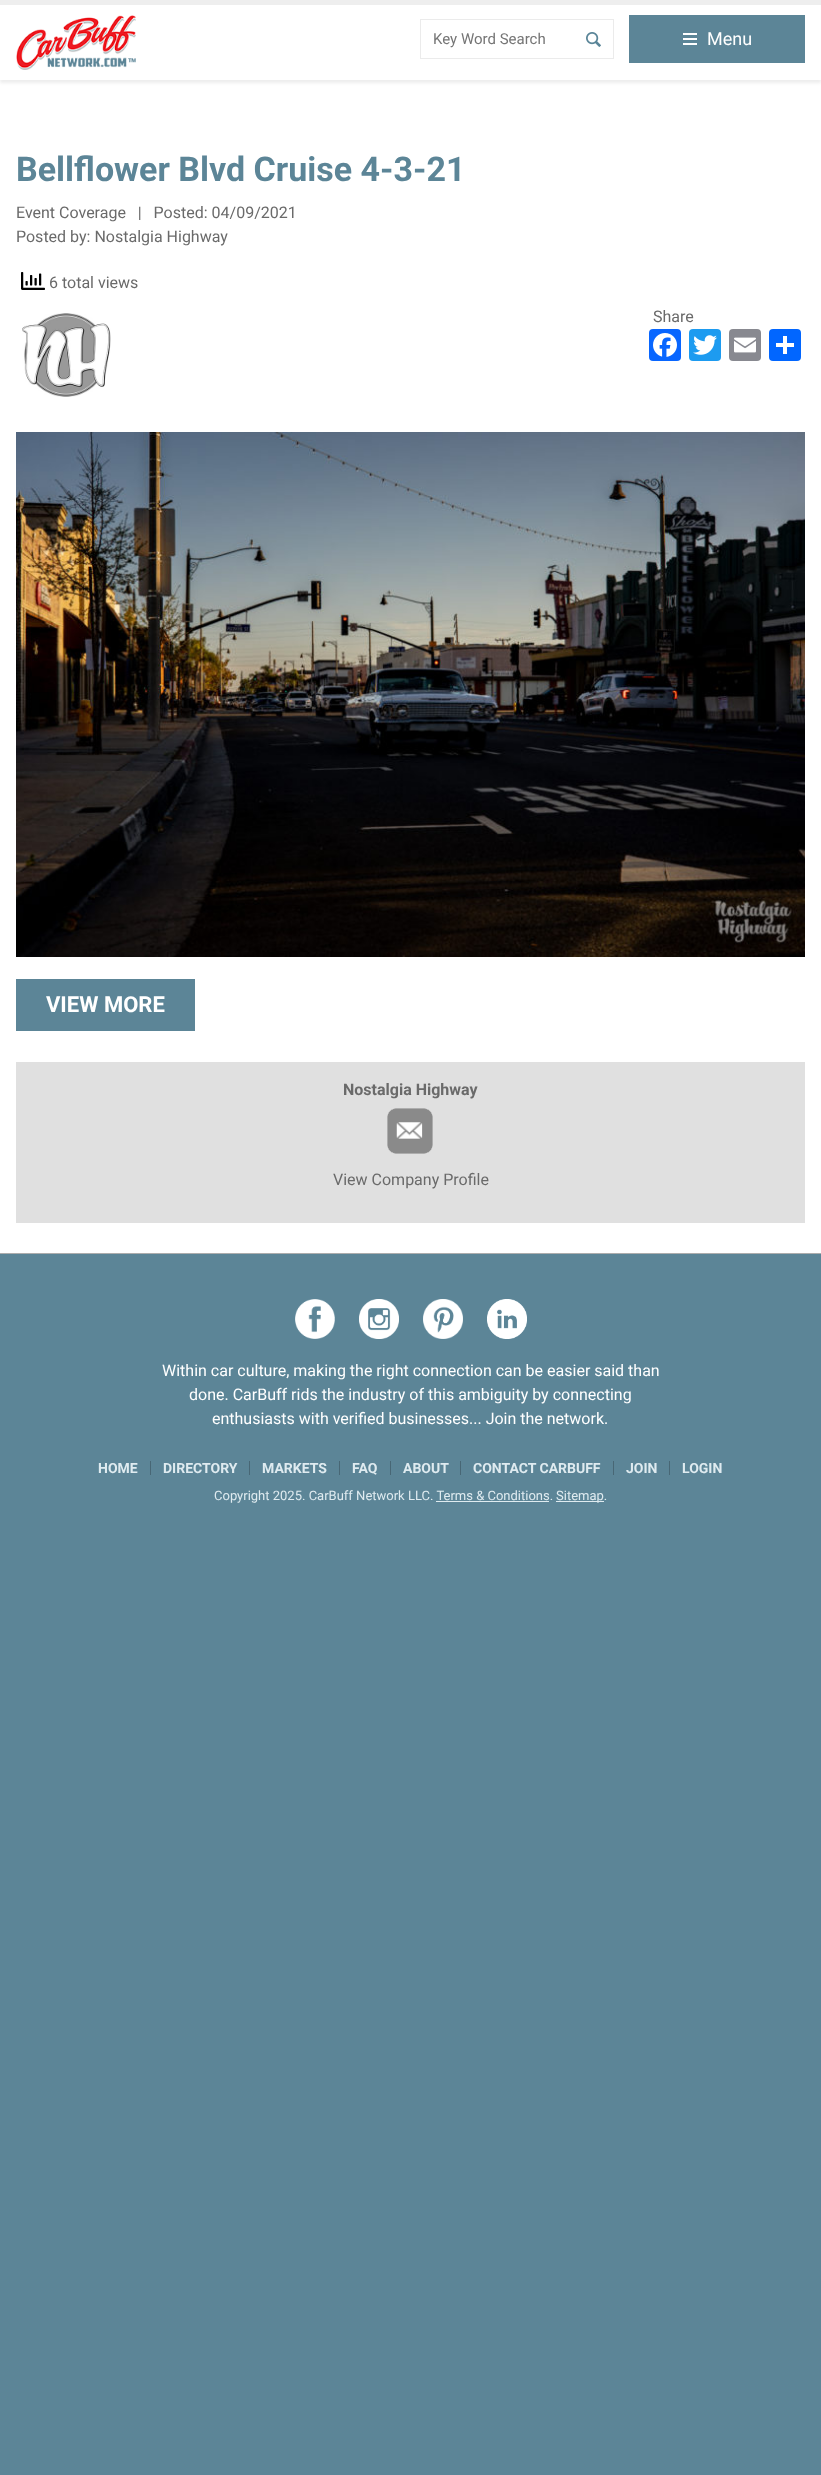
async function draw(canvas) {
  canvas.width = 821;
  canvas.height = 2475;
  const ctx = canvas.getContext('2d');
  ctx.miterLimit = 4;
  ctx.fontKerning = 'normal';
  function label(s, x, y, font, color) {
    ctx.font = font;
    ctx.fillStyle = color;
    ctx.fillText(s, x, y);
  }
  function rect(x, y, w, h, color) {
    ctx.fillStyle = color;
    ctx.fillRect(x, y, w, h);
  }
  function roundedRect(x, y, w, h, r, color) {
    ctx.fillStyle = color;
    ctx.beginPath();
    ctx.roundRect(x, y, w, h, r);
    ctx.fill();
  }
  async function image(src, x, y, w, h) {
    const img = new Image();
    img.src = src;
    await img.decode();
    ctx.drawImage(img, x, y, w, h);
  }

  rect(0, 0, 821, 2475, '#5c8597');
  rect(0, 80, 821, 1173, '#fff');
  ctx.fillStyle = '#00000012';
  ctx.filter = 'blur(1.5px)';
  ctx.beginPath();
  ctx.rect(0, 3, 821, 80);
  ctx.fill();
  ctx.filter = 'none';
  rect(0, 5, 821, 75, '#fff');
  rect(0, 0, 821, 5, '#eee');
  await image('assets/img1.png', 16, 15, 120, 55);
  ctx.strokeStyle = '#ebebeb';
  ctx.strokeRect(420.5, 19.5, 193, 39);
  label('Key Word Search', 433, 44, '15px Roboto', '#757575');
  await image('assets/img2.png', 586, 32, 15, 15);
  rect(629, 15, 176, 48, '#5c8597');
  rect(683, 33, 14, 2, '#fff');
  rect(683, 43, 14, 2, '#fff');
  rect(683, 38, 14, 2, '#fff');
  label('Menu', 707, 45, '18px Roboto', '#fff');
  label('Bellflower Blvd Cruise 4-3-21', 16, 181, 'bold 34px Roboto', '#5c8597');
  label('Event Coverage   |   Posted: 04/09/2021', 16, 218, '16px Roboto', '#6a6a6a');
  label('Posted by: Nostalgia Highway', 16, 242, '16px Roboto', '#6a6a6a');
  await image('assets/img3.png', 21, 272, 24, 18);
  label('6 total views', 49, 288, '16px Roboto', '#6a6a6a');
  await image('assets/img4.png', 22, 313, 89, 84);
  label('Share', 653, 322, '16px Roboto', '#6a6a6a');
  roundedRect(649, 329, 32, 32, 4, '#0866ff');
  await image('assets/img5.png', 653, 333, 24, 24);
  roundedRect(689, 329, 32, 32, 4, '#1d9bf0');
  await image('assets/img6.png', 693, 335, 24, 20);
  roundedRect(729, 329, 32, 32, 4, '#888990');
  await image('assets/img7.png', 734, 337, 22, 16);
  roundedRect(769, 329, 32, 32, 4, '#0166ff');
  rect(783, 336, 4, 18, '#fff');
  rect(776, 343, 18, 4, '#fff');
  await image('assets/img8.png', 16, 432, 789, 525);
  rect(16, 979, 179, 52, '#5c8597');
  label('VIEW MORE', 46, 1012, 'bold 22px Roboto', '#fff');
  rect(16, 1062, 789, 161, '#e0e0e0');
  label('Nostalgia Highway', 343, 1095, 'bold 16px Roboto', '#6a6a6a');
  await image('assets/img9.png', 387, 1108, 46, 46);
  label('View Company Profile', 333, 1185, '16px Roboto', '#6a6a6a');
  rect(0, 1253, 821, 1, '#adadad');
  await image('assets/img10.png', 295, 1299, 40, 40);
  await image('assets/img11.png', 359, 1299, 40, 40);
  await image('assets/img12.png', 423, 1299, 40, 40);
  await image('assets/img13.png', 487, 1299, 40, 40);
  label('Within car culture, making the right connection can be easier said than', 162, 1376, '16px Roboto', '#fff');
  label('done. CarBuff rids the industry of this ambiguity by connecting', 189, 1400, '16px Roboto', '#fff');
  label('enthusiasts with verified businesses... Join the network.', 212, 1424, '16px Roboto', '#fff');
  label('HOME', 98, 1473, 'bold 14px Roboto', '#dfebf0');
  rect(150, 1461, 1, 14, '#486775');
  label('DIRECTORY', 163, 1473, 'bold 14px Roboto', '#dfebf0');
  rect(249, 1461, 1, 14, '#486775');
  label('MARKETS', 262, 1473, 'bold 14px Roboto', '#dfebf0');
  rect(339, 1461, 1, 14, '#486775');
  label('FAQ', 352, 1473, 'bold 14px Roboto', '#dfebf0');
  rect(390, 1461, 1, 14, '#486775');
  label('ABOUT', 403, 1473, 'bold 14px Roboto', '#dfebf0');
  rect(460, 1461, 1, 14, '#486775');
  label('CONTACT CARBUFF', 473, 1473, 'bold 14px Roboto', '#dfebf0');
  rect(613, 1461, 1, 14, '#486775');
  label('JOIN', 626, 1473, 'bold 14px Roboto', '#dfebf0');
  rect(669, 1461, 1, 14, '#486775');
  label('LOGIN', 682, 1473, 'bold 14px Roboto', '#dfebf0');
  label('Copyright 2025. CarBuff Network LLC. Terms & Conditions.', 214, 1500, '13px Roboto', '#dfebf0');
  rect(556, 1501, 48, 1, '#dfebf0');
  label('Sitemap.', 556, 1500, '13px Roboto', '#dfebf0');
  rect(436, 1501, 113, 1, '#dfebf0');
}

draw(document.querySelector('canvas'));
